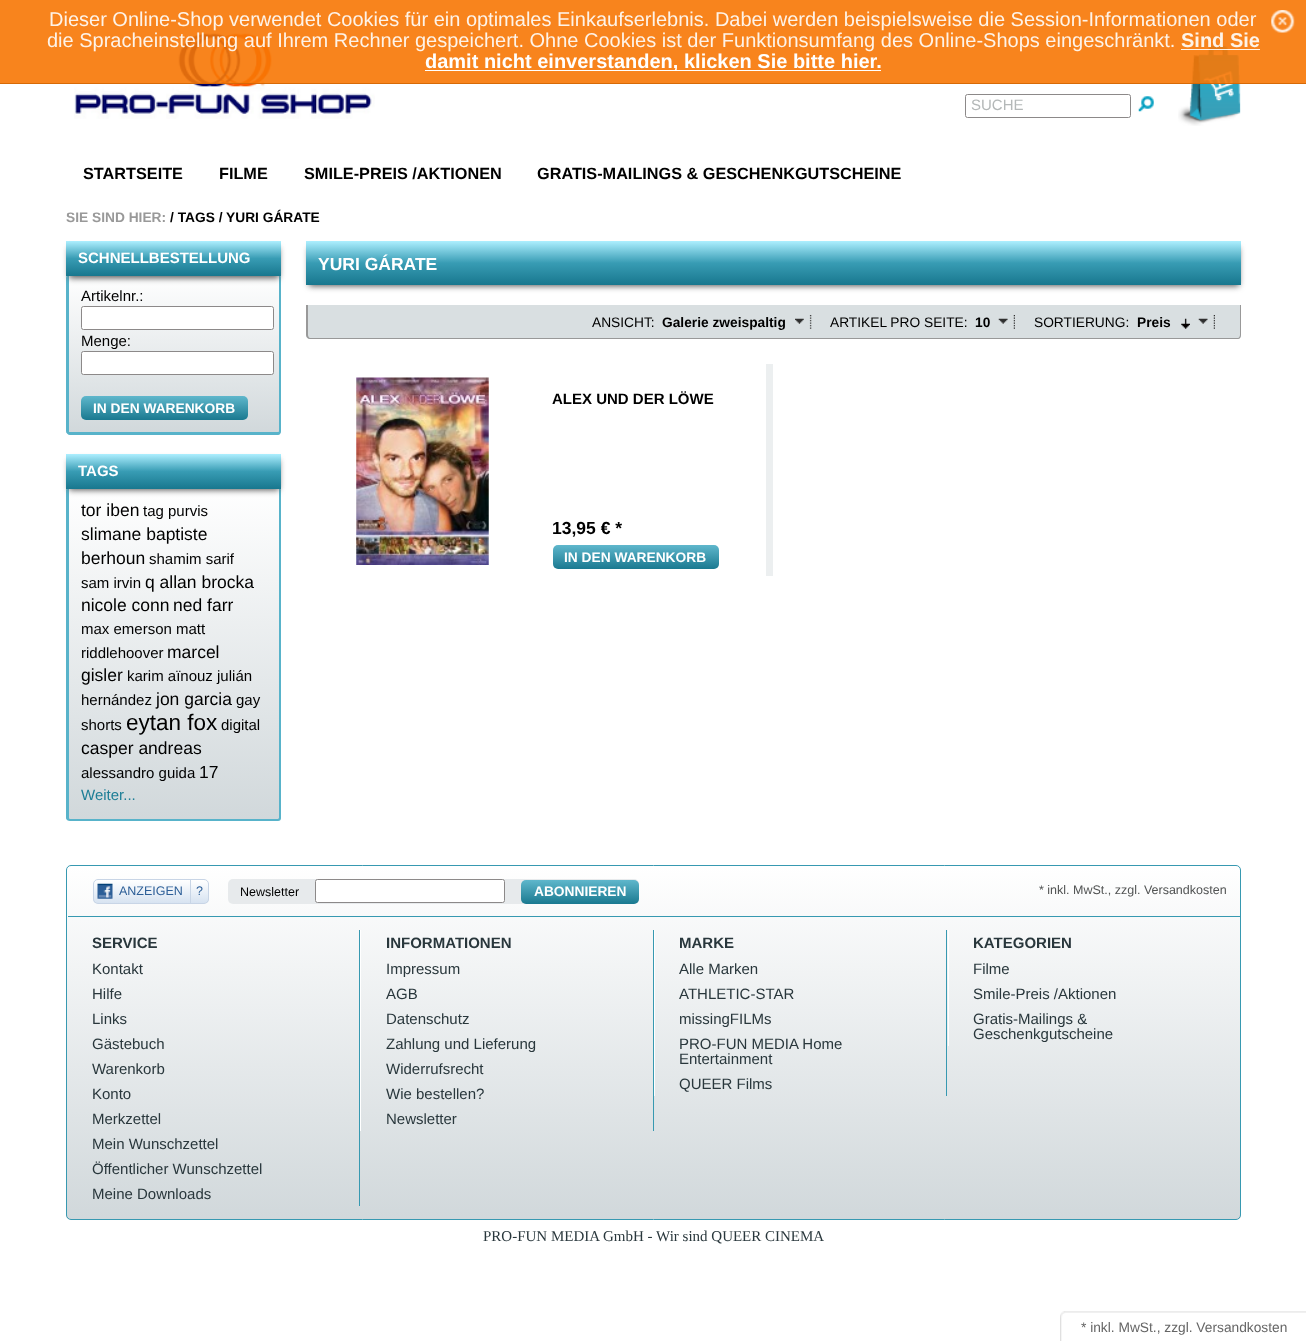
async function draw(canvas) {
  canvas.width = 1306;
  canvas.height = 1341;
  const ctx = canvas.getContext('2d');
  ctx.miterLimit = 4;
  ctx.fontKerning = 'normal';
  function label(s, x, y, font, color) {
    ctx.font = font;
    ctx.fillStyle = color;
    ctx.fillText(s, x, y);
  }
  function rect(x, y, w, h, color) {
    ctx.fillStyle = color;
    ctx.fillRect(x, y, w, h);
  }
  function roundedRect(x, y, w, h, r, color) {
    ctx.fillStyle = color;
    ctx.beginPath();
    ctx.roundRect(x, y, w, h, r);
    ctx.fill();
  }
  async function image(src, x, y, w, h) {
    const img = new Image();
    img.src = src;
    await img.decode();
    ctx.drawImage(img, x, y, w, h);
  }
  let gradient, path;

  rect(0, 0, 1306, 1341, '#fff');
  await image('assets/img2.png', 1051, 12, 2, 13);
  await image('assets/img3.png', 1171, 13, 2, 14);
  await image('assets/img4.png', 1233, 18, 9, 5);
  await image('assets/img5.png', 74, 30, 301, 89);
  await image('assets/img7.png', 1178, 46, 63, 80);
  rect(0, 0, 1306, 84, '#f77704e6');
  rect(0, 83, 1306, 1, '#d36706e6');
  label('Dieser Online-Shop verwendet Cookies für ein optimales Einkaufserlebnis. Dabei werden beispielsweise die Session-Informationen oder', 49, 26, '20px Liberation Sans', '#fef3e8');
  await image('assets/img1.png', 1271, 10, 24, 23);
  label('die Spracheinstellung auf Ihrem Rechner gespeichert. Ohne Cookies ist der Funktionsumfang des Online-Shops eingeschränkt.', 47, 47, '20px Liberation Sans', '#fef3e8');
  label('Sind Sie', 1181, 47, 'bold 20px Liberation Sans', '#fef3e8');
  rect(1181, 49, 79, 1, '#ffffffe6');
  rect(425, 70, 456, 1, '#fff');
  label('damit nicht einverstanden, klicken Sie bitte hier.', 425, 68, 'bold 20px Liberation Sans', '#fff');
  ctx.beginPath();
  ctx.roundRect(965.5, 94.5, 165, 23, 2);
  ctx.strokeStyle = '#8c8989';
  ctx.stroke();
  await image('assets/img6.png', 1138, 96, 16, 16);
  label('SUCHE', 971, 110, '15px Liberation Sans', '#b4b8b8');
  label('STARTSEITE', 83, 179, 'bold 16.25px Liberation Sans', '#000');
  label('FILME', 219, 179, 'bold 16.25px Liberation Sans', '#000');
  label('SMILE-PREIS /AKTIONEN', 304, 179, 'bold 16.25px Liberation Sans', '#000');
  label('GRATIS-MAILINGS & GESCHENKGUTSCHEINE', 537, 179, 'bold 16.25px Liberation Sans', '#000');
  label('SIE SIND HIER:', 66, 222, 'bold 13.75px Liberation Sans', '#999');
  label('/ TAGS / YURI GÁRATE', 170, 222, 'bold 13.75px Liberation Sans', '#000');
  ctx.save();
  ctx.beginPath();
  ctx.roundRect(66, 274, 215, 161, 4);
  ctx.clip();
  gradient = ctx.createLinearGradient(174, 274, 174, 433);
  gradient.addColorStop(0, '#fff');
  gradient.addColorStop(1, '#d1d8db');
  ctx.fillStyle = gradient;
  ctx.beginPath();
  ctx.roundRect(66, 274, 215, 159, [4, 4, 0, 0]);
  ctx.fill();
  ctx.restore();
  ctx.fillStyle = '#58b3ca';
  path = new Path2D('M70 274H278C280 274 281 275 281 278V431C281 433 280 435 278 435H70C68 435 66 433 66 431V278C66 275 68 274 70 274ZM70 274H278C278 274 279 275 279 278V431C279 432 278 432 278 432H70C69 432 69 432 69 431V278C69 275 69 274 70 274Z');
  ctx.fill(path, 'evenodd');
  ctx.fillStyle = '#555';
  ctx.filter = 'blur(3px)';
  ctx.beginPath();
  ctx.rect(69, 248, 210, 30);
  ctx.fill();
  ctx.filter = 'none';
  gradient = ctx.createLinearGradient(174, 241, 174, 276);
  gradient.addColorStop(0, '#adefff');
  gradient.addColorStop(0.5, '#389cb4');
  gradient.addColorStop(1, '#18778e');
  ctx.fillStyle = gradient;
  ctx.fillRect(66, 241, 215, 35);
  label('SCHNELLBESTELLUNG', 78, 263, 'bold 15px Liberation Sans', '#fff');
  label('Artikelnr.:', 81, 301, '15px Liberation Sans', '#000');
  ctx.fillStyle = '#fff';
  ctx.beginPath();
  ctx.roundRect(81.5, 306.5, 192, 23, 2);
  ctx.fill();
  ctx.stroke();
  label('Menge:', 81, 346, '15px Liberation Sans', '#000');
  ctx.fillStyle = '#fff';
  ctx.beginPath();
  ctx.roundRect(81.5, 351.5, 192, 23, 2);
  ctx.fill();
  ctx.stroke();
  gradient = ctx.createLinearGradient(164, 396, 164, 420);
  gradient.addColorStop(0, '#5fb7cc');
  gradient.addColorStop(1, '#1a7990');
  ctx.fillStyle = gradient;
  ctx.beginPath();
  ctx.roundRect(81, 396, 167, 24, 5);
  ctx.fill();
  label('IN DEN WARENKORB', 93, 413, 'bold 13.75px Liberation Sans', '#fff');
  gradient = ctx.createLinearGradient(174, 486, 174, 819);
  gradient.addColorStop(0, '#fff');
  gradient.addColorStop(1, '#d1d8db');
  ctx.fillStyle = gradient;
  ctx.beginPath();
  ctx.roundRect(66, 486, 215, 333, [4, 4, 0, 0]);
  ctx.fill();
  ctx.fillStyle = '#58b3ca';
  path = new Path2D('M70 486H278C280 486 281 488 281 490V818C281 820 280 821 278 821H70C68 821 66 820 66 818V490C66 488 68 486 70 486ZM70 486H278C278 486 279 488 279 490V818C279 818 278 819 278 819H70C69 819 69 818 69 818V490C69 488 69 486 70 486Z');
  ctx.fill(path, 'evenodd');
  ctx.fillStyle = '#555';
  ctx.filter = 'blur(3px)';
  ctx.beginPath();
  ctx.rect(69, 460, 210, 30);
  ctx.fill();
  ctx.filter = 'none';
  gradient = ctx.createLinearGradient(174, 454, 174, 489);
  gradient.addColorStop(0, '#adefff');
  gradient.addColorStop(0.5, '#389cb4');
  gradient.addColorStop(1, '#18778e');
  ctx.fillStyle = gradient;
  ctx.fillRect(66, 454, 215, 35);
  label('TAGS', 78, 476, 'bold 15px Liberation Sans', '#fff');
  label('tor iben', 81, 516, '17.5px Liberation Sans', '#000');
  label('tag purvis', 143, 516, '15px Liberation Sans', '#000');
  label('slimane baptiste', 81, 540, '17.5px Liberation Sans', '#000');
  label('berhoun', 81, 564, '17.5px Liberation Sans', '#000');
  label('shamim sarif', 149, 564, '15px Liberation Sans', '#000');
  label('sam irvin', 81, 588, '15px Liberation Sans', '#000');
  label('q allan brocka', 145, 588, '17.5px Liberation Sans', '#000');
  label('nicole conn', 81, 611, '17.5px Liberation Sans', '#000');
  label('ned farr', 173, 611, '17.5px Liberation Sans', '#000');
  label('max emerson matt', 81, 634, '15px Liberation Sans', '#000');
  label('riddlehoover', 81, 658, '15px Liberation Sans', '#000');
  label('marcel', 167, 658, '17.5px Liberation Sans', '#000');
  label('gisler', 81, 681, '17.5px Liberation Sans', '#000');
  label('karim aïnouz julián', 127, 681, '15px Liberation Sans', '#000');
  label('hernández', 81, 705, '15px Liberation Sans', '#000');
  label('jon garcia', 156, 705, '17.5px Liberation Sans', '#000');
  label('gay', 236, 705, '15px Liberation Sans', '#000');
  label('shorts', 81, 730, '15px Liberation Sans', '#000');
  label('eytan fox', 126, 730, '22.5px Liberation Sans', '#000');
  label('digital', 221, 730, '15px Liberation Sans', '#000');
  label('casper andreas', 81, 754, '17.5px Liberation Sans', '#000');
  label('alessandro guida', 81, 778, '15px Liberation Sans', '#000');
  label('17', 199, 778, '17.5px Liberation Sans', '#000');
  label('Weiter...', 81, 800, '15px Liberation Sans', '#1d7e96');
  ctx.fillStyle = '#555';
  ctx.filter = 'blur(3px)';
  ctx.beginPath();
  ctx.rect(309, 248, 930, 38);
  ctx.fill();
  ctx.filter = 'none';
  gradient = ctx.createLinearGradient(774, 241, 774, 285);
  gradient.addColorStop(0, '#adefff');
  gradient.addColorStop(0.5, '#389cb4');
  gradient.addColorStop(1, '#18778e');
  ctx.fillStyle = gradient;
  ctx.fillRect(306, 241, 935, 44);
  label('YURI GÁRATE', 318, 270, 'bold 17.5px Liberation Sans', '#fff');
  ctx.fillStyle = '#d9dfe1';
  ctx.beginPath();
  ctx.roundRect(306, 305, 935, 34, [0, 0, 4, 4]);
  ctx.fill();
  ctx.fillStyle = '#999';
  path = new Path2D('M306 305H1241V335C1241 337 1240 339 1238 339H310C308 339 306 337 306 335ZM308 305H1240V335C1240 336 1239 338 1238 338H310C309 338 308 336 308 335Z');
  ctx.fill(path, 'evenodd');
  await image('assets/img8.png', 795, 315, 17, 14);
  label('ANSICHT:', 592, 327, '13.75px Liberation Sans', '#000');
  label('Galerie zweispaltig', 662, 327, 'bold 13.75px Liberation Sans', '#000');
  await image('assets/img9.png', 998, 315, 17, 14);
  label('ARTIKEL PRO SEITE:', 830, 327, '13.75px Liberation Sans', '#000');
  label('10', 975, 327, 'bold 13.75px Liberation Sans', '#000');
  await image('assets/img10.png', 1198, 315, 17, 14);
  label('SORTIERUNG:', 1034, 327, '13.75px Liberation Sans', '#000');
  label('Preis', 1137, 327, 'bold 13.75px Liberation Sans', '#000');
  await image('assets/img11.png', 1181, 318, 9, 11);
  rect(766, 364, 7, 212, '#eceff0');
  await image('assets/img12.png', 356, 377, 133, 188);
  label('ALEX UND DER LÖWE', 552, 404, 'bold 15px Liberation Sans', '#000');
  label('13,95 € *', 552, 534, 'bold 17.5px Liberation Sans', '#000');
  gradient = ctx.createLinearGradient(636, 545, 636, 569);
  gradient.addColorStop(0, '#5fb7cc');
  gradient.addColorStop(1, '#1a7990');
  ctx.fillStyle = gradient;
  ctx.beginPath();
  ctx.roundRect(553, 545, 166, 24, 5);
  ctx.fill();
  label('IN DEN WARENKORB', 564, 562, 'bold 13.75px Liberation Sans', '#fff');
  ctx.save();
  ctx.beginPath();
  ctx.roundRect(66, 865, 1175, 355, 5);
  ctx.clip();
  gradient = ctx.createLinearGradient(654, 866, 654, 1219);
  gradient.addColorStop(0, '#fff');
  gradient.addColorStop(1, '#d1d8db');
  ctx.fillStyle = gradient;
  ctx.fillRect(66, 866, 1175, 353);
  ctx.restore();
  ctx.beginPath();
  ctx.roundRect(66.5, 865.5, 1174, 354, 4.5);
  ctx.strokeStyle = '#3799b1';
  ctx.stroke();
  rect(68, 916, 1172, 1, '#3799b1');
  ctx.save();
  ctx.beginPath();
  ctx.roundRect(93, 879, 116, 25, 5);
  ctx.clip();
  gradient = ctx.createLinearGradient(151, 880, 151, 903);
  gradient.addColorStop(0, '#fff');
  gradient.addColorStop(1, '#d7e3f1');
  ctx.fillStyle = gradient;
  ctx.fillRect(93, 880, 116, 23);
  ctx.restore();
  ctx.beginPath();
  ctx.roundRect(93.5, 879.5, 115, 24, 4.5);
  ctx.strokeStyle = '#c8d5e6';
  ctx.stroke();
  await image('assets/img13.png', 97, 883, 16, 16);
  label('ANZEIGEN', 119, 895, '12.5px Liberation Sans', '#2c5e97');
  rect(190, 880, 1, 23, '#c8d5e6');
  label('?', 196, 895, '12.5px Liberation Sans', '#2c5e97');
  roundedRect(228, 879, 411, 25, 5, '#e7eaec');
  label('Newsletter', 240, 896, '12.5px Liberation Sans', '#000');
  ctx.fillStyle = '#fff';
  ctx.beginPath();
  ctx.roundRect(315.5, 879.5, 189, 23, 2);
  ctx.fill();
  ctx.strokeStyle = '#8c8989';
  ctx.stroke();
  gradient = ctx.createLinearGradient(580, 880, 580, 904);
  gradient.addColorStop(0, '#5fb7cc');
  gradient.addColorStop(1, '#1a7990');
  ctx.fillStyle = gradient;
  ctx.beginPath();
  ctx.roundRect(521, 880, 118, 24, 5);
  ctx.fill();
  label('ABONNIEREN', 534, 896, 'bold 13.75px Liberation Sans', '#fff');
  label('* inkl. MwSt., zzgl. Versandkosten', 1039, 894, '12.5px Liberation Sans', '#515353');
  rect(359, 930, 1, 276, '#3799b1');
  label('SERVICE', 92, 948, 'bold 15px Liberation Sans', '#29373c');
  label('Kontakt', 92, 974, '15px Liberation Sans', '#29373c');
  label('Hilfe', 92, 999, '15px Liberation Sans', '#29373c');
  label('Links', 92, 1024, '15px Liberation Sans', '#29373c');
  label('Gästebuch', 92, 1049, '15px Liberation Sans', '#29373c');
  label('Warenkorb', 92, 1074, '15px Liberation Sans', '#29373c');
  label('Konto', 92, 1099, '15px Liberation Sans', '#29373c');
  label('Merkzettel', 92, 1124, '15px Liberation Sans', '#29373c');
  label('Mein Wunschzettel', 92, 1149, '15px Liberation Sans', '#29373c');
  label('Öffentlicher Wunschzettel', 92, 1174, '15px Liberation Sans', '#29373c');
  label('Meine Downloads', 92, 1199, '15px Liberation Sans', '#29373c');
  rect(653, 930, 1, 201, '#3799b1');
  rect(360, 930, 1, 201, '#fff');
  label('INFORMATIONEN', 386, 948, 'bold 15px Liberation Sans', '#29373c');
  label('Impressum', 386, 974, '15px Liberation Sans', '#29373c');
  label('AGB', 386, 999, '15px Liberation Sans', '#29373c');
  label('Datenschutz', 386, 1024, '15px Liberation Sans', '#29373c');
  label('Zahlung und Lieferung', 386, 1049, '15px Liberation Sans', '#29373c');
  label('Widerrufsrecht', 386, 1074, '15px Liberation Sans', '#29373c');
  label('Wie bestellen?', 386, 1099, '15px Liberation Sans', '#29373c');
  label('Newsletter', 386, 1124, '15px Liberation Sans', '#29373c');
  rect(946, 930, 1, 166, '#3799b1');
  rect(654, 930, 1, 166, '#fff');
  label('MARKE', 679, 948, 'bold 15px Liberation Sans', '#29373c');
  label('Alle Marken', 679, 974, '15px Liberation Sans', '#29373c');
  label('ATHLETIC-STAR', 679, 999, '15px Liberation Sans', '#29373c');
  label('missingFILMs', 679, 1024, '15px Liberation Sans', '#29373c');
  label('PRO-FUN MEDIA Home', 679, 1049, '15px Liberation Sans', '#29373c');
  label('Entertainment', 679, 1064, '15px Liberation Sans', '#29373c');
  label('QUEER Films', 679, 1089, '15px Liberation Sans', '#29373c');
  rect(948, 930, 1, 116, '#fff');
  label('KATEGORIEN', 973, 948, 'bold 15px Liberation Sans', '#29373c');
  label('Filme', 973, 974, '15px Liberation Sans', '#29373c');
  label('Smile-Preis /Aktionen', 973, 999, '15px Liberation Sans', '#29373c');
  label('Gratis-Mailings &', 973, 1024, '15px Liberation Sans', '#29373c');
  label('Geschenkgutscheine', 973, 1039, '15px Liberation Sans', '#29373c');
  label('PRO-FUN MEDIA GmbH - Wir sind QUEER CINEMA', 483, 1241, '15px Liberation Serif', '#29373c');
  await image('assets/img14.png', 1060, 1311, 246, 30);
  label('* inkl. MwSt., zzgl. Versandkosten', 1081, 1332, '13.75px Liberation Sans', '#666');
}

draw(document.querySelector('canvas'));
